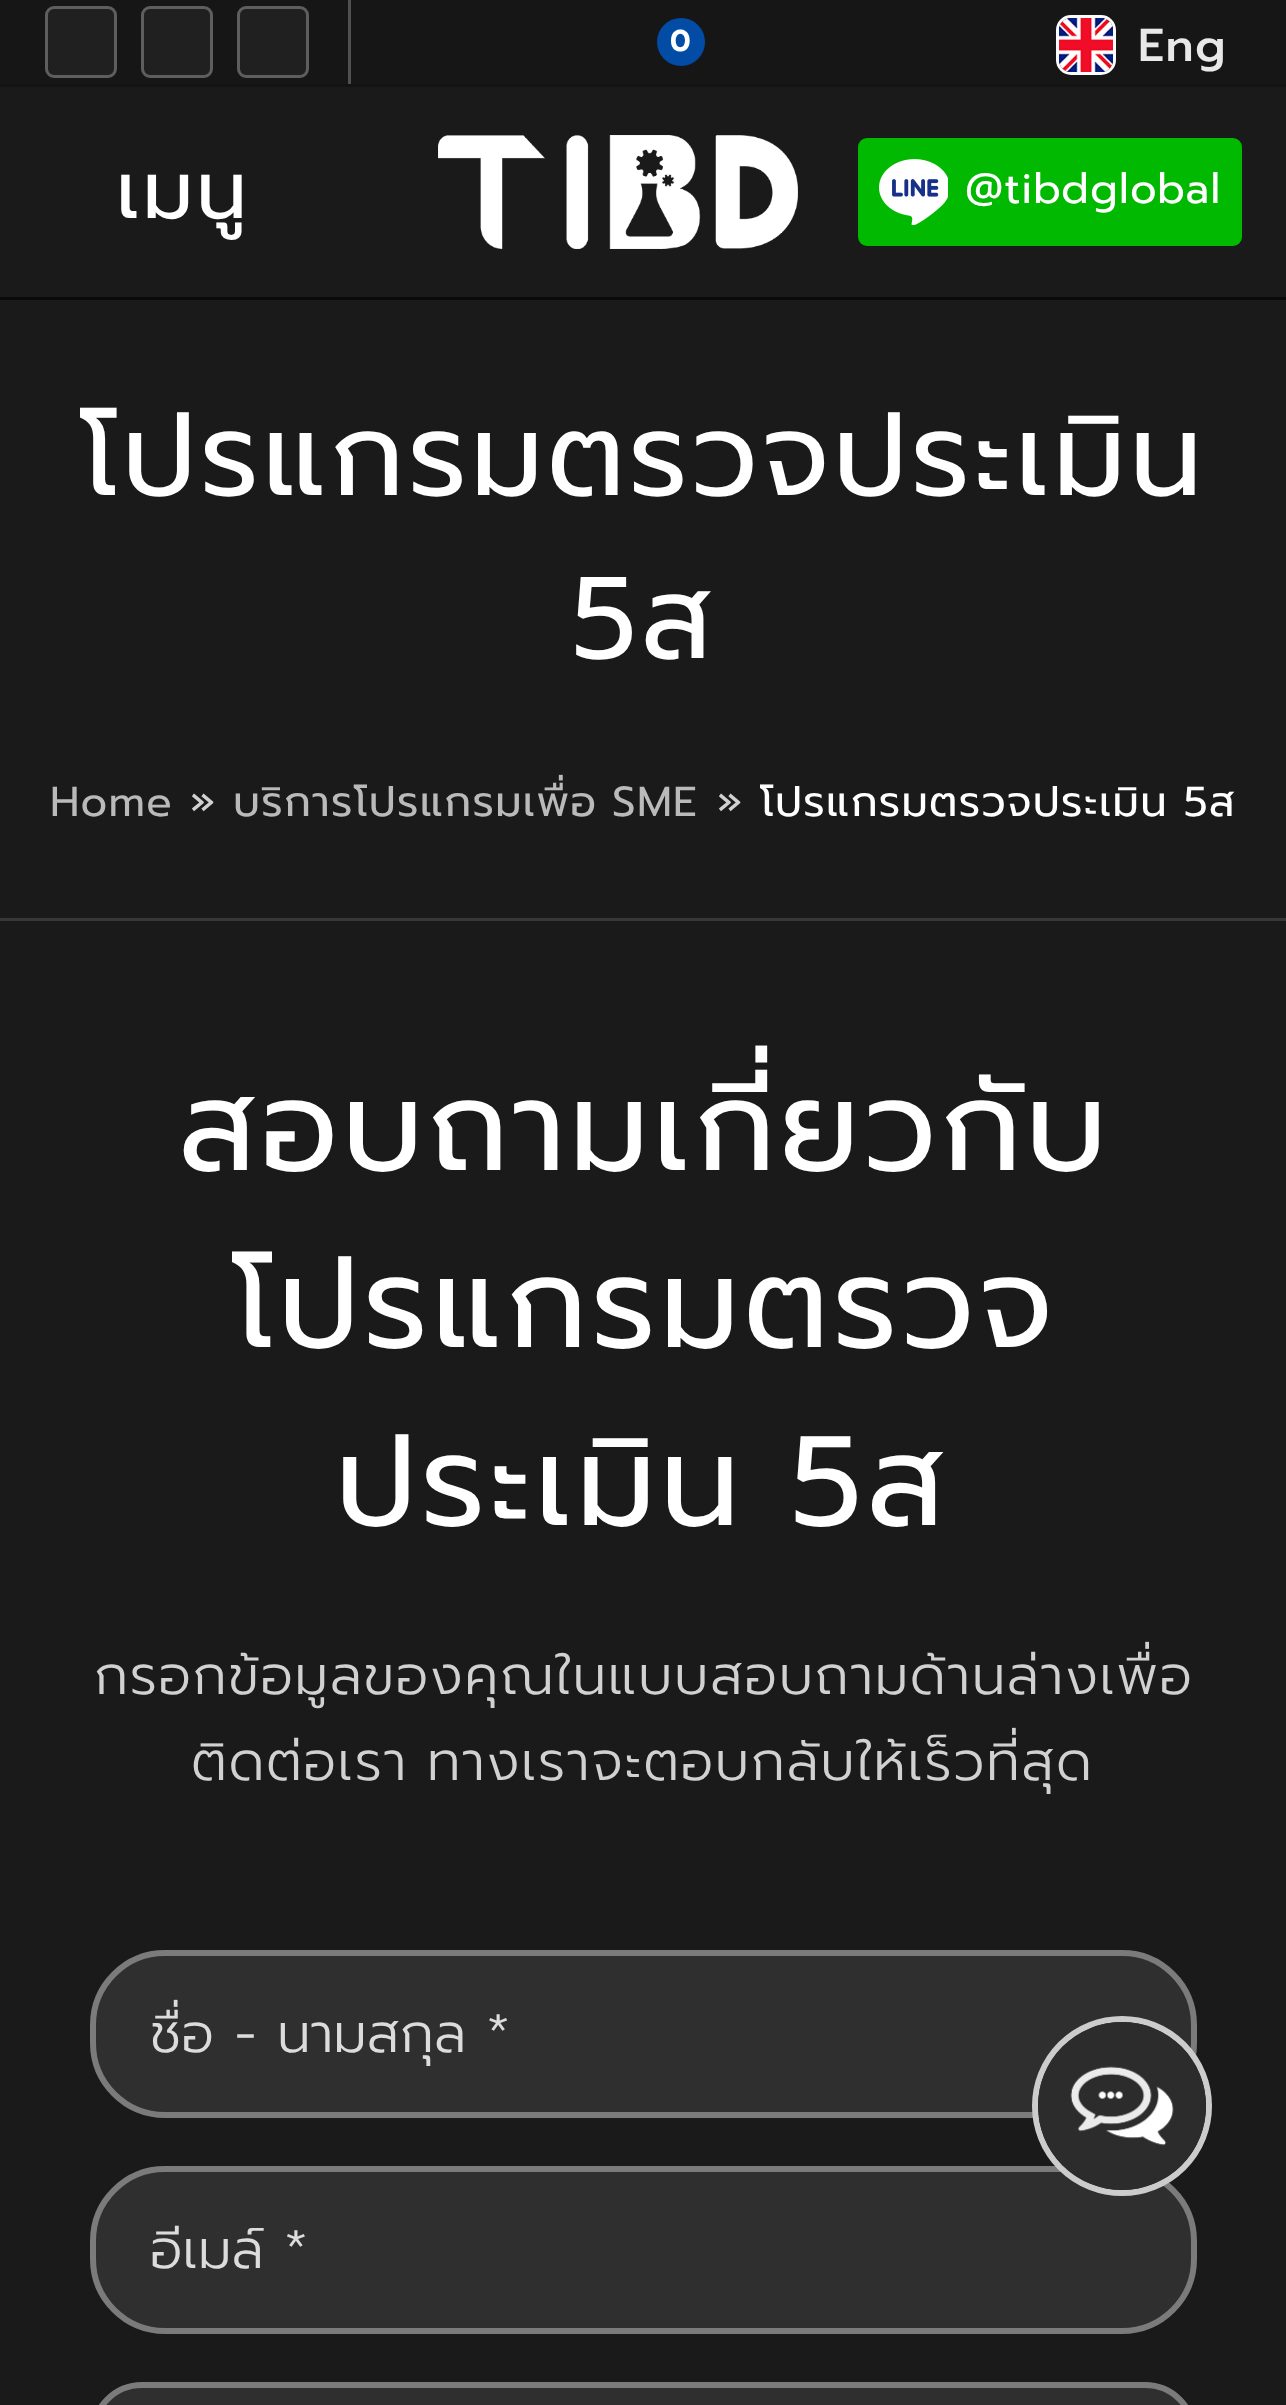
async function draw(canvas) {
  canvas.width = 1286;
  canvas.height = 2405;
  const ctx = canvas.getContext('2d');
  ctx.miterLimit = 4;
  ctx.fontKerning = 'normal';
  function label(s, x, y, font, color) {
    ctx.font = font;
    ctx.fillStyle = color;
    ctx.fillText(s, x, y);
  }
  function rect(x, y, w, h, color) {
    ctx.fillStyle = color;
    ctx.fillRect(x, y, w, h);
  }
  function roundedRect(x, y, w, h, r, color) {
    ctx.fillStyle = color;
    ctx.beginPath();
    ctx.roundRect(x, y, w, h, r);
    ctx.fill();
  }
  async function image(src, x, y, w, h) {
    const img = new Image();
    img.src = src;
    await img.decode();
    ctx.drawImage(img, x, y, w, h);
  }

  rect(0, 0, 1286, 2405, '#1a1a1a');
  rect(0, 0, 1286, 84, '#161616');
  rect(0, 84, 1286, 3, '#131313');
  ctx.fillStyle = '#202020';
  ctx.beginPath();
  ctx.roundRect(46.5, 7.5, 69, 69, 7.5);
  ctx.fill();
  ctx.strokeStyle = '#5e5e5e';
  ctx.lineWidth = 3;
  ctx.stroke();
  ctx.beginPath();
  ctx.roundRect(142.5, 7.5, 69, 69, 7.5);
  ctx.fill();
  ctx.stroke();
  ctx.beginPath();
  ctx.roundRect(238.5, 7.5, 69, 69, 7.5);
  ctx.fill();
  ctx.stroke();
  rect(348, 0, 3, 84, '#505050');
  ctx.fillStyle = '#024ca5';
  ctx.beginPath();
  ctx.arc(681, 42, 24, 0, 2 * Math.PI);
  ctx.fill();
  label('0', 670, 51, '600 30px Prompt', '#fff');
  ctx.beginPath();
  ctx.roundRect(1057.5, 16.5, 57, 57, 13.5);
  ctx.strokeStyle = '#fcfcfc';
  ctx.stroke();
  await image('assets/img1.png', 1059, 18, 54, 54);
  ctx.letterSpacing = '1.5px';
  label('Eng', 1138, 61, '500 46px Prompt', '#e8e8e8');
  rect(0, 297, 1286, 3, '#0a0a0a');
  ctx.letterSpacing = '2.5px';
  label('เมนู', 116, 218, '81px Prompt', '#fff');
  await image('assets/img2.png', 438, 135, 360, 114);
  roundedRect(858, 138, 384, 108, 9, '#01b901');
  await image('assets/img3.png', 879, 159, 69, 66);
  ctx.letterSpacing = '1.25px';
  label('@tibdglobal', 965, 203, '42px Prompt', '#fff');
  rect(0, 918, 1286, 3, '#373737');
  ctx.letterSpacing = '3.4px';
  label('โปรแกรมตรวจประเมิน', 80, 495, '116px Prompt', '#fff');
  label('5ส', 571, 658, '116px Prompt', '#fff');
  ctx.letterSpacing = '1.25px';
  label('Home', 50, 816, '42px Prompt', '#bababa');
  label('»', 190, 816, '42px Prompt', '#d1d1d1');
  ctx.wordSpacing = '-2px';
  label('บริการโปรแกรมเพื่อ SME', 233, 816, '42px Prompt', '#bababa');
  ctx.wordSpacing = '0px';
  label('»', 717, 816, '42px Prompt', '#d1d1d1');
  ctx.wordSpacing = '-1px';
  label('โปรแกรมตรวจประเมิน 5ส', 760, 816, '42px Prompt', '#fff');
  ctx.letterSpacing = '3.75px';
  ctx.wordSpacing = '0px';
  label('สอบถามเกี่ยวกับ', 178, 1170, '127px Prompt', '#fff');
  label('โปรแกรมตรวจ', 232, 1347, '127px Prompt', '#fff');
  ctx.wordSpacing = '-4px';
  label('ประเมิน 5ส', 335, 1525, '127px Prompt', '#fff');
  ctx.letterSpacing = '1.6px';
  ctx.wordSpacing = '0px';
  label('กรอกข้อมูลของคุณในแบบสอบถามด้านล่างเพื่อ', 94, 1694, '300 54px Prompt', '#d1d1d1');
  ctx.wordSpacing = '-3px';
  label('ติดต่อเรา ทางเราจะตอบกลับให้เร็วที่สุด', 191, 1780, '300 54px Prompt', '#d1d1d1');
  ctx.fillStyle = '#2f2f2f';
  ctx.beginPath();
  ctx.roundRect(93, 1953, 1101, 162, 72);
  ctx.fill();
  ctx.strokeStyle = '#7b7b7b';
  ctx.lineWidth = 6;
  ctx.stroke();
  ctx.save();
  ctx.beginPath();
  ctx.rect(150, 1992, 987, 84);
  ctx.clip();
  ctx.letterSpacing = '0px';
  ctx.wordSpacing = '0px';
  label('ชื่อ - นามสกุล *', 150, 2052, '300 54px Prompt', '#dddcdc');
  ctx.restore();
  ctx.beginPath();
  ctx.roundRect(93, 2169, 1101, 162, 72);
  ctx.fill();
  ctx.stroke();
  ctx.save();
  ctx.beginPath();
  ctx.rect(150, 2208, 987, 84);
  ctx.clip();
  ctx.letterSpacing = '0px';
  ctx.wordSpacing = '0px';
  label('อีเมล์ *', 150, 2268, '300 54px Prompt', '#dddcdc');
  ctx.restore();
  ctx.beginPath();
  ctx.roundRect(93, 2385, 1101, 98, 72);
  ctx.fill();
  ctx.stroke();
  ctx.beginPath();
  ctx.arc(1122, 2106, 87, 0, 2 * Math.PI);
  ctx.strokeStyle = '#ccc';
  ctx.stroke();
  ctx.fillStyle = '#2c2c2c';
  ctx.beginPath();
  ctx.arc(1122, 2106, 84, 0, 2 * Math.PI);
  ctx.fill();
  await image('assets/img4.png', 1070, 2066, 104, 80);
}

draw(document.querySelector('canvas'));
